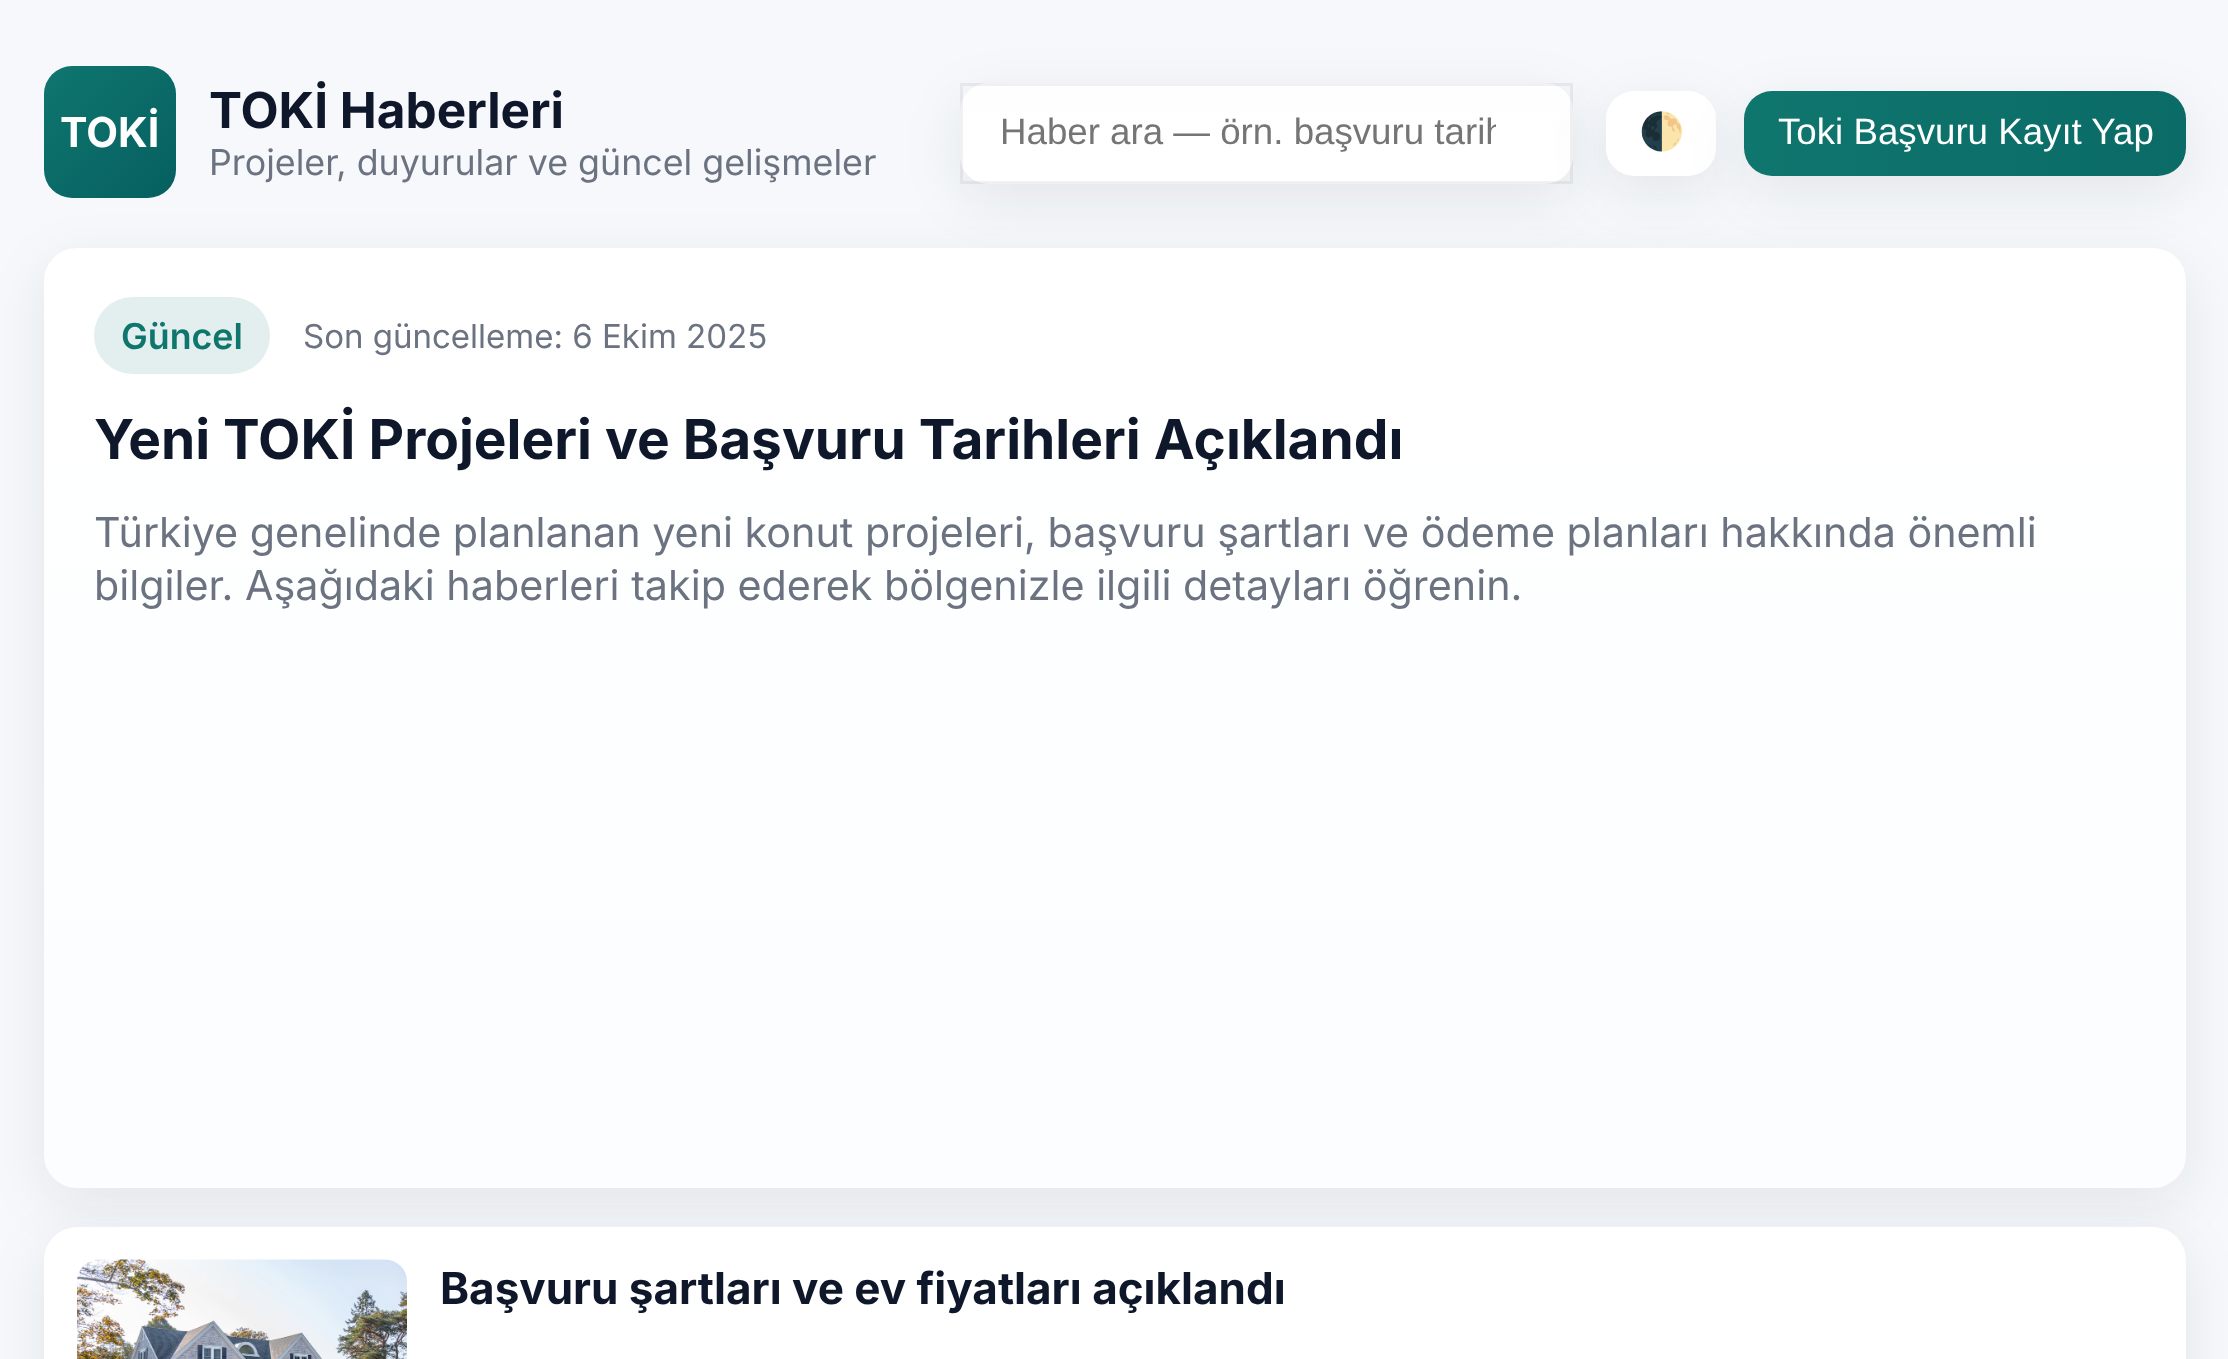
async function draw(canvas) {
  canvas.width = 2228;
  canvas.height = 1359;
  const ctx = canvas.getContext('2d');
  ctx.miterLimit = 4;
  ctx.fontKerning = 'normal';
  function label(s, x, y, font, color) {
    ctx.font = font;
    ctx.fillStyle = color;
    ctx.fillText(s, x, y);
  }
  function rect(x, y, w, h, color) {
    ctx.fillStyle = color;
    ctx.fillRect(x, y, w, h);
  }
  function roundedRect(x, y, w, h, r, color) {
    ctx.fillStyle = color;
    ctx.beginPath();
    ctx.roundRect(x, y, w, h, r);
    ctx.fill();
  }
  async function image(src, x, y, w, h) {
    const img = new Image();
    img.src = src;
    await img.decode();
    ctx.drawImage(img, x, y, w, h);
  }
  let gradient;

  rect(0, 0, 2228, 1359, '#f6f8fb');
  gradient = ctx.createLinearGradient(44, 66, 176, 198);
  gradient.addColorStop(0, '#0f766e');
  gradient.addColorStop(1, '#065f60');
  ctx.fillStyle = gradient;
  ctx.beginPath();
  ctx.roundRect(44, 66, 132, 132, 28);
  ctx.fill();
  label('TOKİ', 60, 147, 'bold 41.25px Inter', '#fff');
  label('TOKİ Haberleri', 209, 128, 'bold 49.5px Inter', '#0f172a');
  label('Projeler, duyurular ve güncel gelişmeler', 209, 175, '35.75px Inter', '#6b7280');
  ctx.fillStyle = '#10182814';
  ctx.filter = 'blur(27.5px)';
  ctx.beginPath();
  ctx.roundRect(960, 99, 613, 102, 28);
  ctx.fill();
  ctx.filter = 'none';
  ctx.save();
  ctx.beginPath();
  ctx.roundRect(960, 83, 613, 101, 28);
  ctx.clip();
  gradient = ctx.createLinearGradient(1266, -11, 1266, 85);
  gradient.addColorStop(0, '#fefeff');
  gradient.addColorStop(1, '#fff');
  ctx.fillStyle = gradient;
  ctx.fillRect(977, 83, 579, 2);
  gradient = ctx.createLinearGradient(1266, 85, 1266, 182);
  gradient.addColorStop(0, '#fefeff');
  gradient.addColorStop(1, '#fff');
  ctx.fillStyle = gradient;
  ctx.fillRect(960, 85, 613, 97);
  gradient = ctx.createLinearGradient(1266, 181, 1266, 278);
  gradient.addColorStop(0, '#fefeff');
  gradient.addColorStop(1, '#fff');
  ctx.fillStyle = gradient;
  ctx.fillRect(977, 182, 578, 2);
  ctx.restore();
  ctx.strokeStyle = '#0f172a0f';
  ctx.lineWidth = 3;
  ctx.strokeRect(961.5, 84.5, 610, 98);
  ctx.save();
  ctx.beginPath();
  ctx.rect(1001, 113, 495, 41);
  ctx.clip();
  label('Haber ara — örn. başvuru tarih', 1000, 144, '36.7px Liberation Sans', '#757575');
  ctx.restore();
  ctx.filter = 'blur(27.5px)';
  ctx.beginPath();
  ctx.roundRect(1606, 107, 110, 86, 28);
  ctx.fill();
  ctx.filter = 'none';
  roundedRect(1606, 91, 110, 85, 28, '#fff');
  label('🌓', 1639, 144, '36.7px Noto Color Emoji', '#000');
  ctx.fillStyle = '#10182814';
  ctx.filter = 'blur(27.5px)';
  ctx.beginPath();
  ctx.roundRect(1744, 107, 442, 86, 28);
  ctx.fill();
  ctx.filter = 'none';
  gradient = ctx.createLinearGradient(1744, 133, 2186, 133);
  gradient.addColorStop(0, '#0f766e');
  gradient.addColorStop(1, '#0b6b66');
  ctx.fillStyle = gradient;
  ctx.beginPath();
  ctx.roundRect(1744, 91, 442, 85, 28);
  ctx.fill();
  label('Toki Başvuru Kayıt Yap', 1778, 144, '36.7px Liberation Sans', '#fff');
  ctx.fillStyle = '#10182814';
  ctx.filter = 'blur(27.5px)';
  ctx.beginPath();
  ctx.roundRect(44, 264, 2142, 941, 33);
  ctx.fill();
  ctx.filter = 'none';
  gradient = ctx.createLinearGradient(1115, 247, 1115, 1188);
  gradient.addColorStop(0, '#fff');
  gradient.addColorStop(1, '#fbfdff');
  ctx.fillStyle = gradient;
  ctx.beginPath();
  ctx.roundRect(44, 248, 2142, 940, 33);
  ctx.fill();
  roundedRect(94, 297, 176, 77, 38.5, '#e2efee');
  label('Güncel', 121, 349, '600 35.75px Inter', '#0f766e');
  label('Son güncelleme: 6 Ekim 2025', 303, 348, '33px Inter', '#6b7280');
  label('Yeni TOKİ Projeleri ve Başvuru Tarihleri Açıklandı', 94, 459, 'bold 55px Inter', '#0f172a');
  label('Türkiye genelinde planlanan yeni konut projeleri, başvuru şartları ve ödeme planları hakkında önemli', 94, 547, '41.25px Inter', '#6b7280');
  label('bilgiler. Aşağıdaki haberleri takip ederek bölgenizle ilgili detayları öğrenin.', 94, 600, '41.25px Inter', '#6b7280');
  ctx.fillStyle = '#10182814';
  ctx.filter = 'blur(27.5px)';
  ctx.beginPath();
  ctx.roundRect(44, 1243, 2142, 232, 33);
  ctx.fill();
  ctx.filter = 'none';
  roundedRect(44, 1227, 2142, 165, 33, '#fff');
  await image('assets/img1.png', 77, 1259, 330, 100);
  label('Başvuru şartları ve ev fiyatları açıklandı', 440, 1304, 'bold 44px Inter', '#0f172a');
}

draw(document.querySelector('canvas'));
